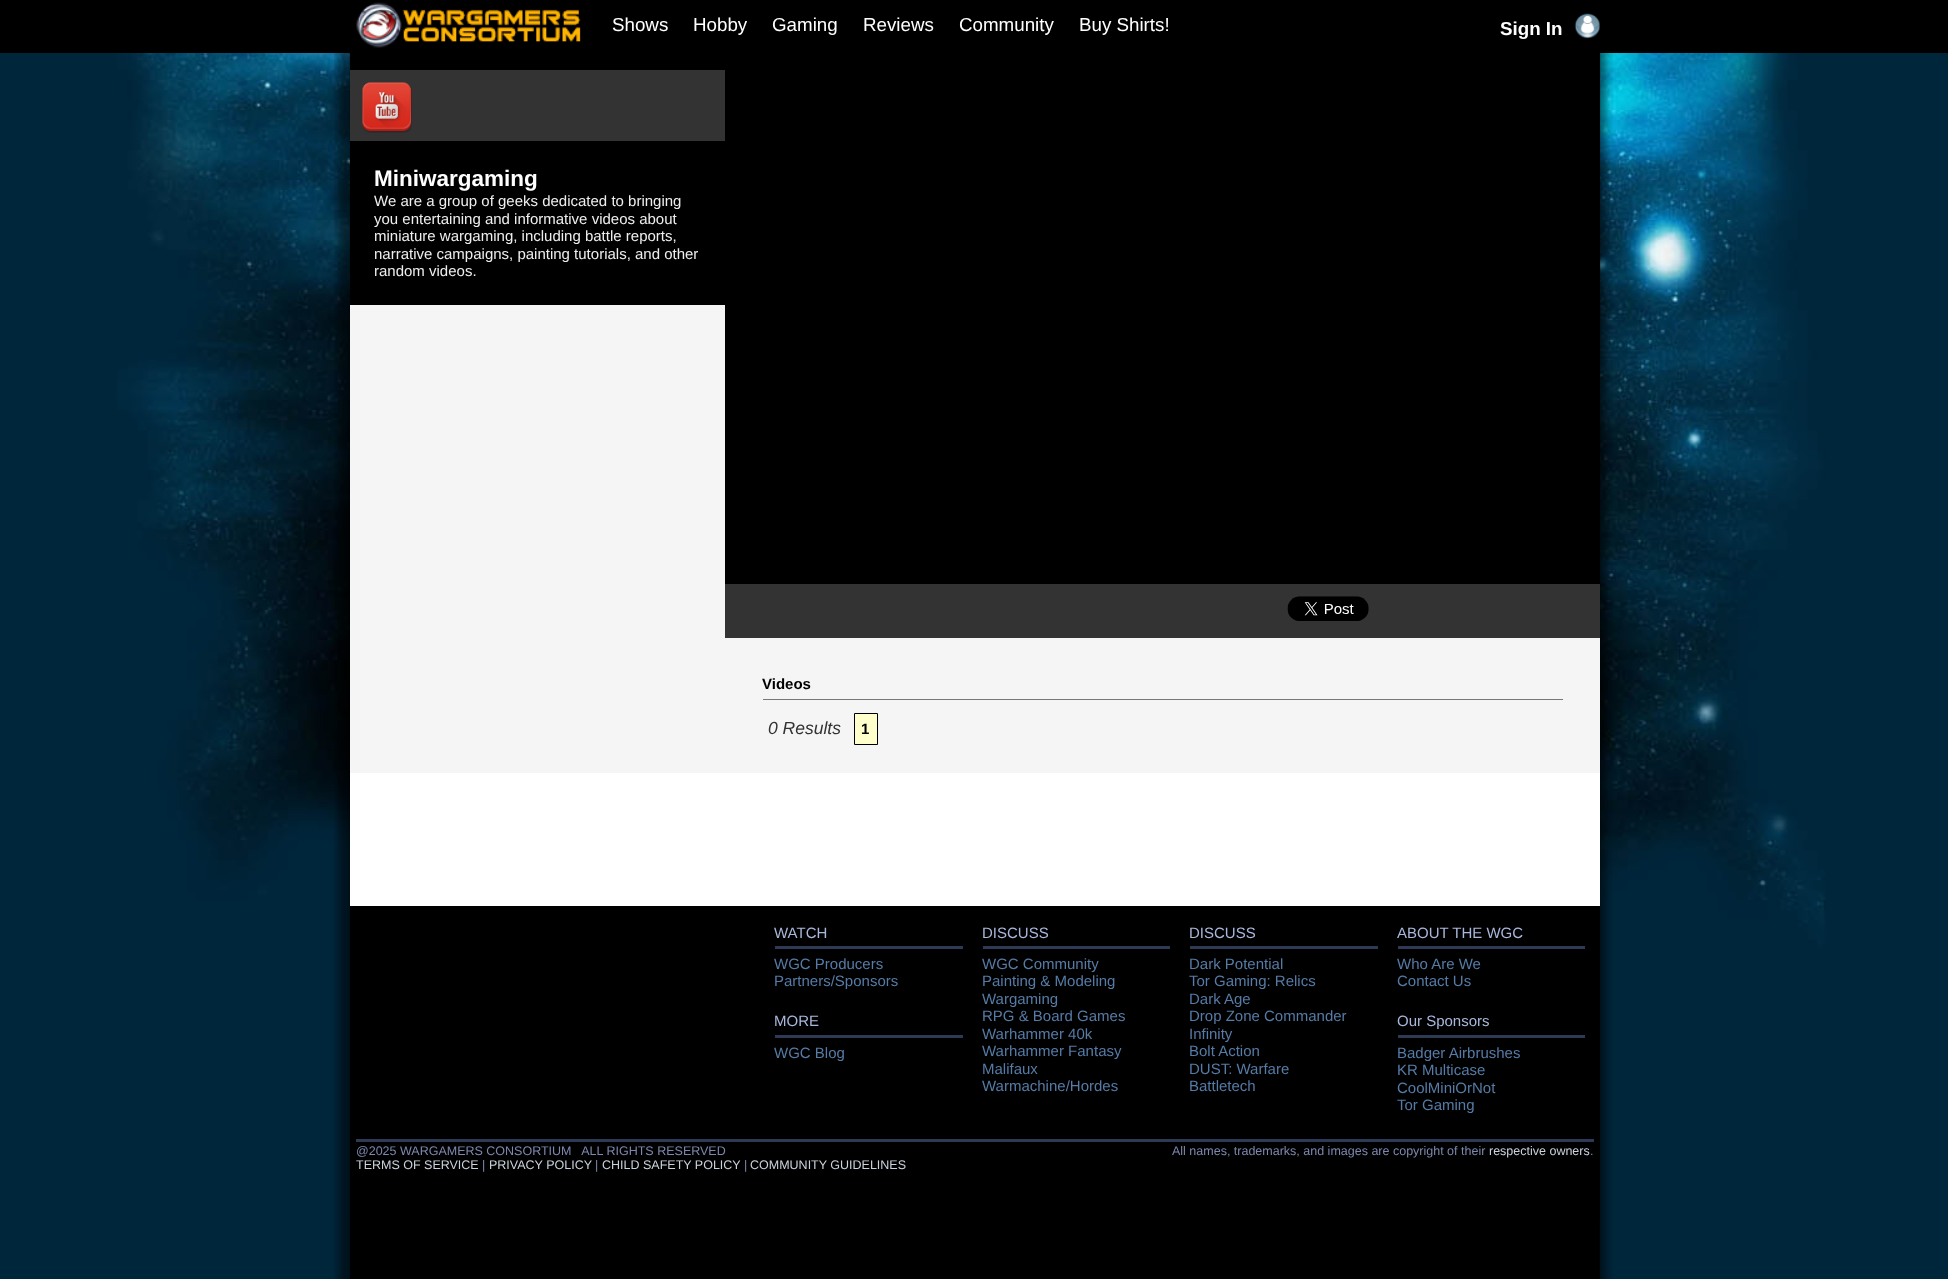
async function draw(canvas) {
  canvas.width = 1948;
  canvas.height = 1279;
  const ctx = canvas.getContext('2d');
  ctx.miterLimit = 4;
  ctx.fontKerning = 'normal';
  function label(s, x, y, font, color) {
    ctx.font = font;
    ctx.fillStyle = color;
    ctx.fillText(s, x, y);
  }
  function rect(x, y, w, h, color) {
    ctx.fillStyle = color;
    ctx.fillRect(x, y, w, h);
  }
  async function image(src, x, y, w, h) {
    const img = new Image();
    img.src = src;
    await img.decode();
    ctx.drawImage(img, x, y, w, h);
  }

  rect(0, 0, 1948, 1279, '#00263b');
  await image('assets/img1.png', 115, 53, 1711, 907);
  rect(0, 0, 1948, 53, '#000');
  await image('assets/img2.png', 356, 2, 225, 46);
  label('Shows', 612, 31, '18.75px Liberation Sans', '#fff');
  label('Hobby', 693, 31, '18.75px Liberation Sans', '#fff');
  label('Gaming', 772, 31, '18.75px Liberation Sans', '#fff');
  label('Reviews', 863, 31, '18.75px Liberation Sans', '#fff');
  label('Community', 959, 31, '18.75px Liberation Sans', '#fff');
  label('Buy Shirts!', 1079, 31, '18.75px Liberation Sans', '#fff');
  label('Sign In', 1500, 35, 'bold 18.75px Liberation Sans', '#fff');
  await image('assets/img3.png', 1574, 13, 26, 26);
  await image('assets/img4.png', 334, 53, 1279, 1226);
  rect(350, 773, 1250, 133, '#fff');
  rect(350, 305, 1250, 468, '#f5f5f5');
  rect(350, 53, 1, 233, '#000');
  rect(350, 70, 375, 71, '#333');
  await image('assets/img5.png', 362, 82, 50, 51);
  label('Miniwargaming', 374, 186, 'bold 22.5px Liberation Sans', '#fff');
  label('We are a group of geeks dedicated to bringing', 374, 206, '15px Liberation Sans', '#eee');
  label('you entertaining and informative videos about', 374, 224, '15px Liberation Sans', '#eee');
  label('miniature wargaming, including battle reports,', 374, 241, '15px Liberation Sans', '#eee');
  label('narrative campaigns, painting tutorials, and other', 374, 259, '15px Liberation Sans', '#eee');
  label('random videos.', 374, 276, '15px Liberation Sans', '#eee');
  rect(725, 53, 875, 531, '#000');
  rect(725, 584, 875, 54, '#333');
  await image('assets/img6.png', 1287, 596, 82, 25);
  rect(763, 699, 800, 1, '#777');
  label('Videos', 762, 689, 'bold 15px Liberation Sans', '#000');
  label('0 Results', 768, 734, 'italic 17.5px Liberation Sans', '#333');
  ctx.fillStyle = '#ffc';
  ctx.beginPath();
  ctx.rect(854.5, 713.5, 23, 31);
  ctx.fill();
  ctx.strokeStyle = '#000';
  ctx.stroke();
  label('1', 861, 734, 'bold 15px Liberation Sans', '#000');
  rect(350, 906, 1250, 315, '#000');
  rect(775, 946, 188, 3, '#2e3956');
  label('WATCH', 774, 938, '15px Liberation Sans', '#a8b7db');
  label('WGC Producers', 774, 969, '15px Liberation Sans', '#557ba6');
  label('Partners/Sponsors', 774, 986, '15px Liberation Sans', '#557ba6');
  rect(775, 1035, 188, 3, '#2e3956');
  label('MORE', 774, 1026, '15px Liberation Sans', '#a8b7db');
  label('WGC Blog', 774, 1058, '15px Liberation Sans', '#557ba6');
  rect(983, 946, 187, 3, '#2e3956');
  label('DISCUSS', 982, 938, '15px Liberation Sans', '#a8b7db');
  label('WGC Community', 982, 969, '15px Liberation Sans', '#557ba6');
  label('Painting & Modeling', 982, 986, '15px Liberation Sans', '#557ba6');
  label('Wargaming', 982, 1004, '15px Liberation Sans', '#557ba6');
  label('RPG & Board Games', 982, 1021, '15px Liberation Sans', '#557ba6');
  label('Warhammer 40k', 982, 1039, '15px Liberation Sans', '#557ba6');
  label('Warhammer Fantasy', 982, 1056, '15px Liberation Sans', '#557ba6');
  label('Malifaux', 982, 1074, '15px Liberation Sans', '#557ba6');
  label('Warmachine/Hordes', 982, 1091, '15px Liberation Sans', '#557ba6');
  rect(1190, 946, 188, 3, '#2e3956');
  label('DISCUSS', 1189, 938, '15px Liberation Sans', '#a8b7db');
  label('Dark Potential', 1189, 969, '15px Liberation Sans', '#557ba6');
  label('Tor Gaming: Relics', 1189, 986, '15px Liberation Sans', '#557ba6');
  label('Dark Age', 1189, 1004, '15px Liberation Sans', '#557ba6');
  label('Drop Zone Commander', 1189, 1021, '15px Liberation Sans', '#557ba6');
  label('Infinity', 1189, 1039, '15px Liberation Sans', '#557ba6');
  label('Bolt Action', 1189, 1056, '15px Liberation Sans', '#557ba6');
  label('DUST: Warfare', 1189, 1074, '15px Liberation Sans', '#557ba6');
  label('Battletech', 1189, 1091, '15px Liberation Sans', '#557ba6');
  rect(1398, 946, 187, 3, '#2e3956');
  label('ABOUT THE WGC', 1397, 938, '15px Liberation Sans', '#a8b7db');
  label('Who Are We', 1397, 969, '15px Liberation Sans', '#557ba6');
  label('Contact Us', 1397, 986, '15px Liberation Sans', '#557ba6');
  rect(1398, 1035, 187, 3, '#2e3956');
  label('Our Sponsors', 1397, 1026, '15px Liberation Sans', '#a8b7db');
  label('Badger Airbrushes', 1397, 1058, '15px Liberation Sans', '#557ba6');
  label('KR Multicase', 1397, 1075, '15px Liberation Sans', '#557ba6');
  label('CoolMiniOrNot', 1397, 1093, '15px Liberation Sans', '#557ba6');
  label('Tor Gaming', 1397, 1110, '15px Liberation Sans', '#557ba6');
  rect(356, 1139, 1238, 3, '#2e3956');
  label('@2025 WARGAMERS CONSORTIUM   ALL RIGHTS RESERVED', 356, 1155, '12.5px Liberation Sans', '#7d88ae');
  label('TERMS OF SERVICE', 356, 1169, '12.5px Liberation Sans', '#cad2db');
  label('|', 482, 1169, '12.5px Liberation Sans', '#7d88ae');
  label('PRIVACY POLICY', 489, 1169, '12.5px Liberation Sans', '#cad2db');
  label('|', 595, 1169, '12.5px Liberation Sans', '#7d88ae');
  label('CHILD SAFETY POLICY', 602, 1169, '12.5px Liberation Sans', '#cad2db');
  label('|', 744, 1169, '12.5px Liberation Sans', '#7d88ae');
  label('COMMUNITY GUIDELINES', 750, 1169, '12.5px Liberation Sans', '#cad2db');
  label('All names, trademarks, and images are copyright of their', 1172, 1155, '12.5px Liberation Sans', '#7d88ae');
  label('respective owners', 1489, 1155, '12.5px Liberation Sans', '#cad2db');
  label('.', 1590, 1155, '12.5px Liberation Sans', '#7d88ae');
}

draw(document.querySelector('canvas'));
